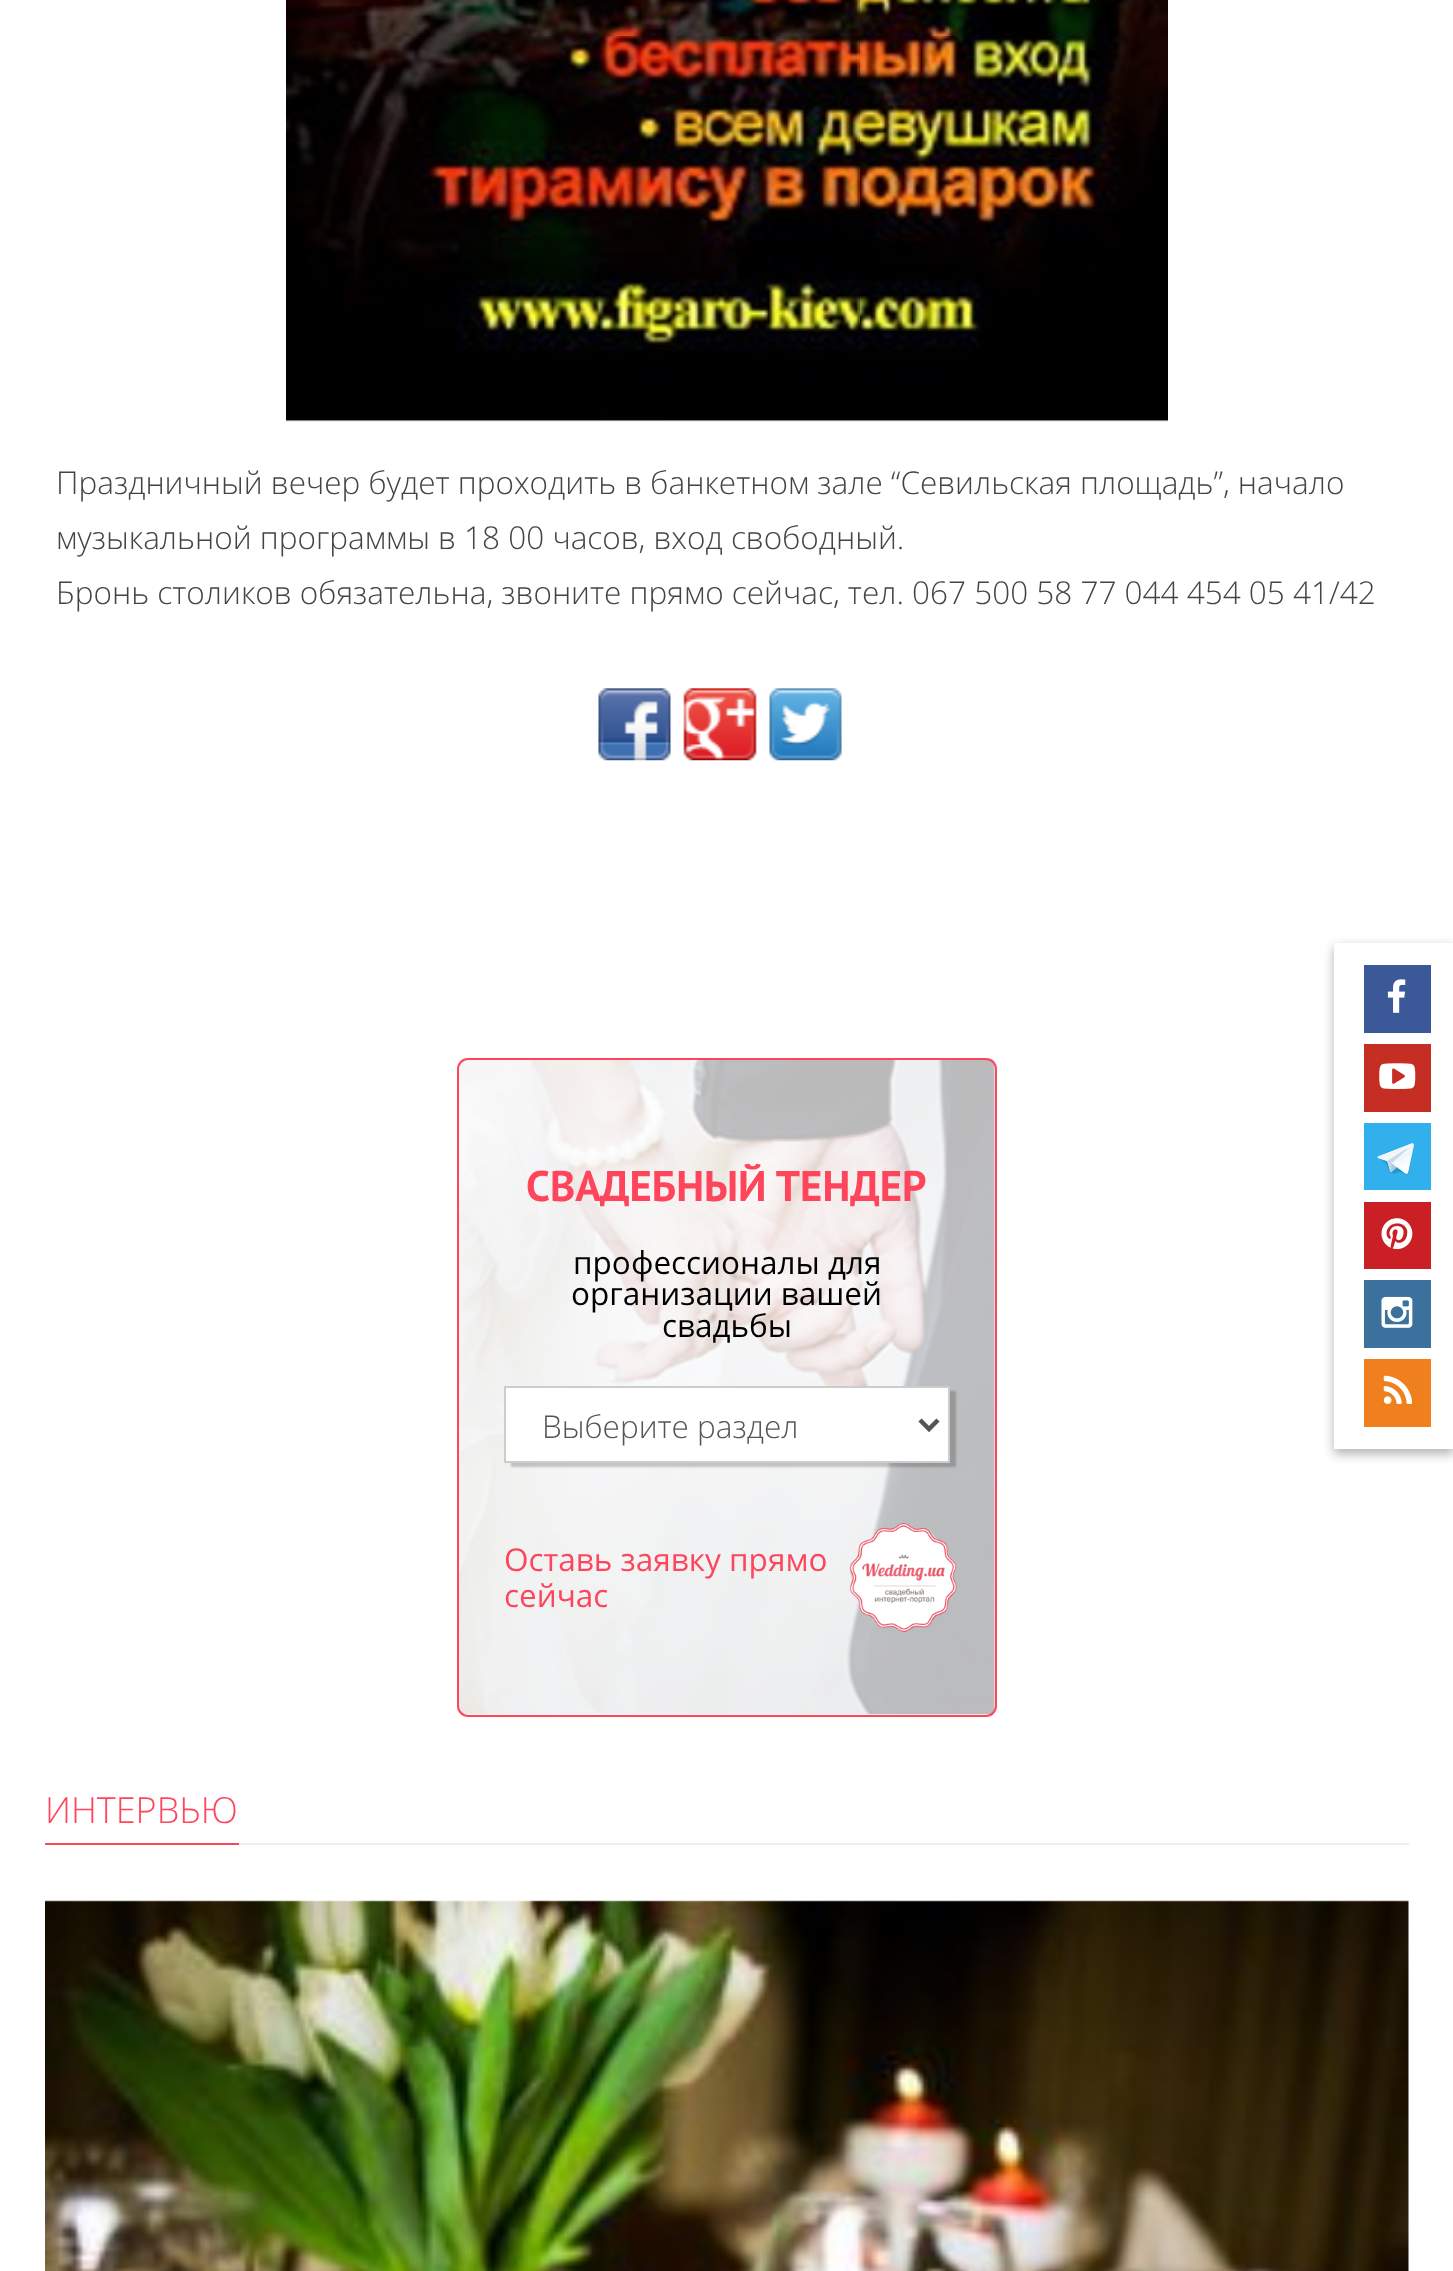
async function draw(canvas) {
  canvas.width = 1453;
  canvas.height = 2271;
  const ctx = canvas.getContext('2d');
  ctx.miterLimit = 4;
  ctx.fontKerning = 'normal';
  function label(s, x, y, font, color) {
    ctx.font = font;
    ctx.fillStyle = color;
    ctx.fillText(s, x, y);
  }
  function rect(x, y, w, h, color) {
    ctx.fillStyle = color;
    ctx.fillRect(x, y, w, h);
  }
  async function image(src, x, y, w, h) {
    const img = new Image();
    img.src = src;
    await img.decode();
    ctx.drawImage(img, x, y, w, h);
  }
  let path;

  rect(0, 0, 1453, 2271, '#fff');
  await image('assets/img1.png', 286, 0, 882, 422);
  label('Праздничный вечер будет проходить в банкетном зале “Севильская площадь”, начало', 56, 494, '300 31.5px Open Sans', '#444');
  label('музыкальной программы в 18 00 часов, вход свободный.', 56, 549, '300 31.5px Open Sans', '#444');
  label('Бронь столиков обязательна, звоните прямо сейчас, тел. 067 500 58 77 044 454 05 41/42', 56, 604, '300 31.5px Open Sans', '#444');
  await image('assets/img2.png', 598, 688, 73, 73);
  await image('assets/img3.png', 683, 688, 74, 73);
  await image('assets/img4.png', 769, 688, 73, 73);
  await image('assets/img5.png', 457, 1059, 538, 656);
  ctx.beginPath();
  ctx.roundRect(458, 1059, 538, 657, 10);
  ctx.strokeStyle = '#fe455b';
  ctx.lineWidth = 2;
  ctx.stroke();
  label('СВАДЕБНЫЙ ТЕНДЕР', 526, 1201, 'bold 42.75px PT Sans', '#fe455b');
  label('профессионалы для', 573, 1274, '31.5px Open Sans', '#000');
  label('организации вашей', 571, 1305, '31.5px Open Sans', '#000');
  label('свадьбы', 662, 1337, '31.5px Open Sans', '#000');
  ctx.fillStyle = '#00000033';
  ctx.filter = 'blur(1px)';
  ctx.beginPath();
  ctx.rect(511, 1391, 445, 76);
  ctx.fill();
  ctx.filter = 'none';
  ctx.fillStyle = '#fff';
  ctx.beginPath();
  ctx.rect(505, 1387, 444, 75);
  ctx.fill();
  ctx.strokeStyle = '#ccc';
  ctx.stroke();
  path = new Path2D('M920 1420L929 1429L938 1420');
  ctx.strokeStyle = '#555';
  ctx.lineWidth = 4.5;
  ctx.stroke(path);
  label('Выберите раздел', 542, 1438, '300 31.5px Open Sans', '#555');
  label('Оставь заявку прямо', 504, 1571, '31.5px Open Sans', '#fe455b');
  label('сейчас', 504, 1607, '31.5px Open Sans', '#fe455b');
  await image('assets/img6.png', 849, 1523, 108, 109);
  rect(239, 1843, 1170, 2, '#eee');
  rect(45, 1843, 194, 2, '#fe455b');
  label('ИНТЕРВЬЮ', 45, 1823, '300 36px Open Sans', '#fe455b');
  await image('assets/img7.png', 45, 1900, 1364, 371);
  ctx.fillStyle = '#0000004d';
  ctx.filter = 'blur(5.5px)';
  ctx.beginPath();
  ctx.rect(1334, 947, 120, 507);
  ctx.fill();
  ctx.filter = 'none';
  rect(1334, 943, 119, 506, '#fff');
  rect(1364, 965, 67, 68, '#3b5998');
  await image('assets/img8.png', 1387, 979, 19, 34);
  rect(1364, 1044, 67, 68, '#c62e24');
  await image('assets/img9.png', 1379, 1063, 37, 26);
  rect(1364, 1123, 67, 67, '#32afed');
  await image('assets/img10.png', 1377, 1143, 37, 32);
  rect(1364, 1202, 67, 67, '#ca2025');
  await image('assets/img11.png', 1381, 1218, 32, 32);
  rect(1364, 1280, 67, 68, '#3c719d');
  await image('assets/img12.png', 1381, 1296, 32, 32);
  rect(1364, 1359, 67, 68, '#f0801e');
  await image('assets/img13.png', 1383, 1375, 29, 29);
}

draw(document.querySelector('canvas'));
